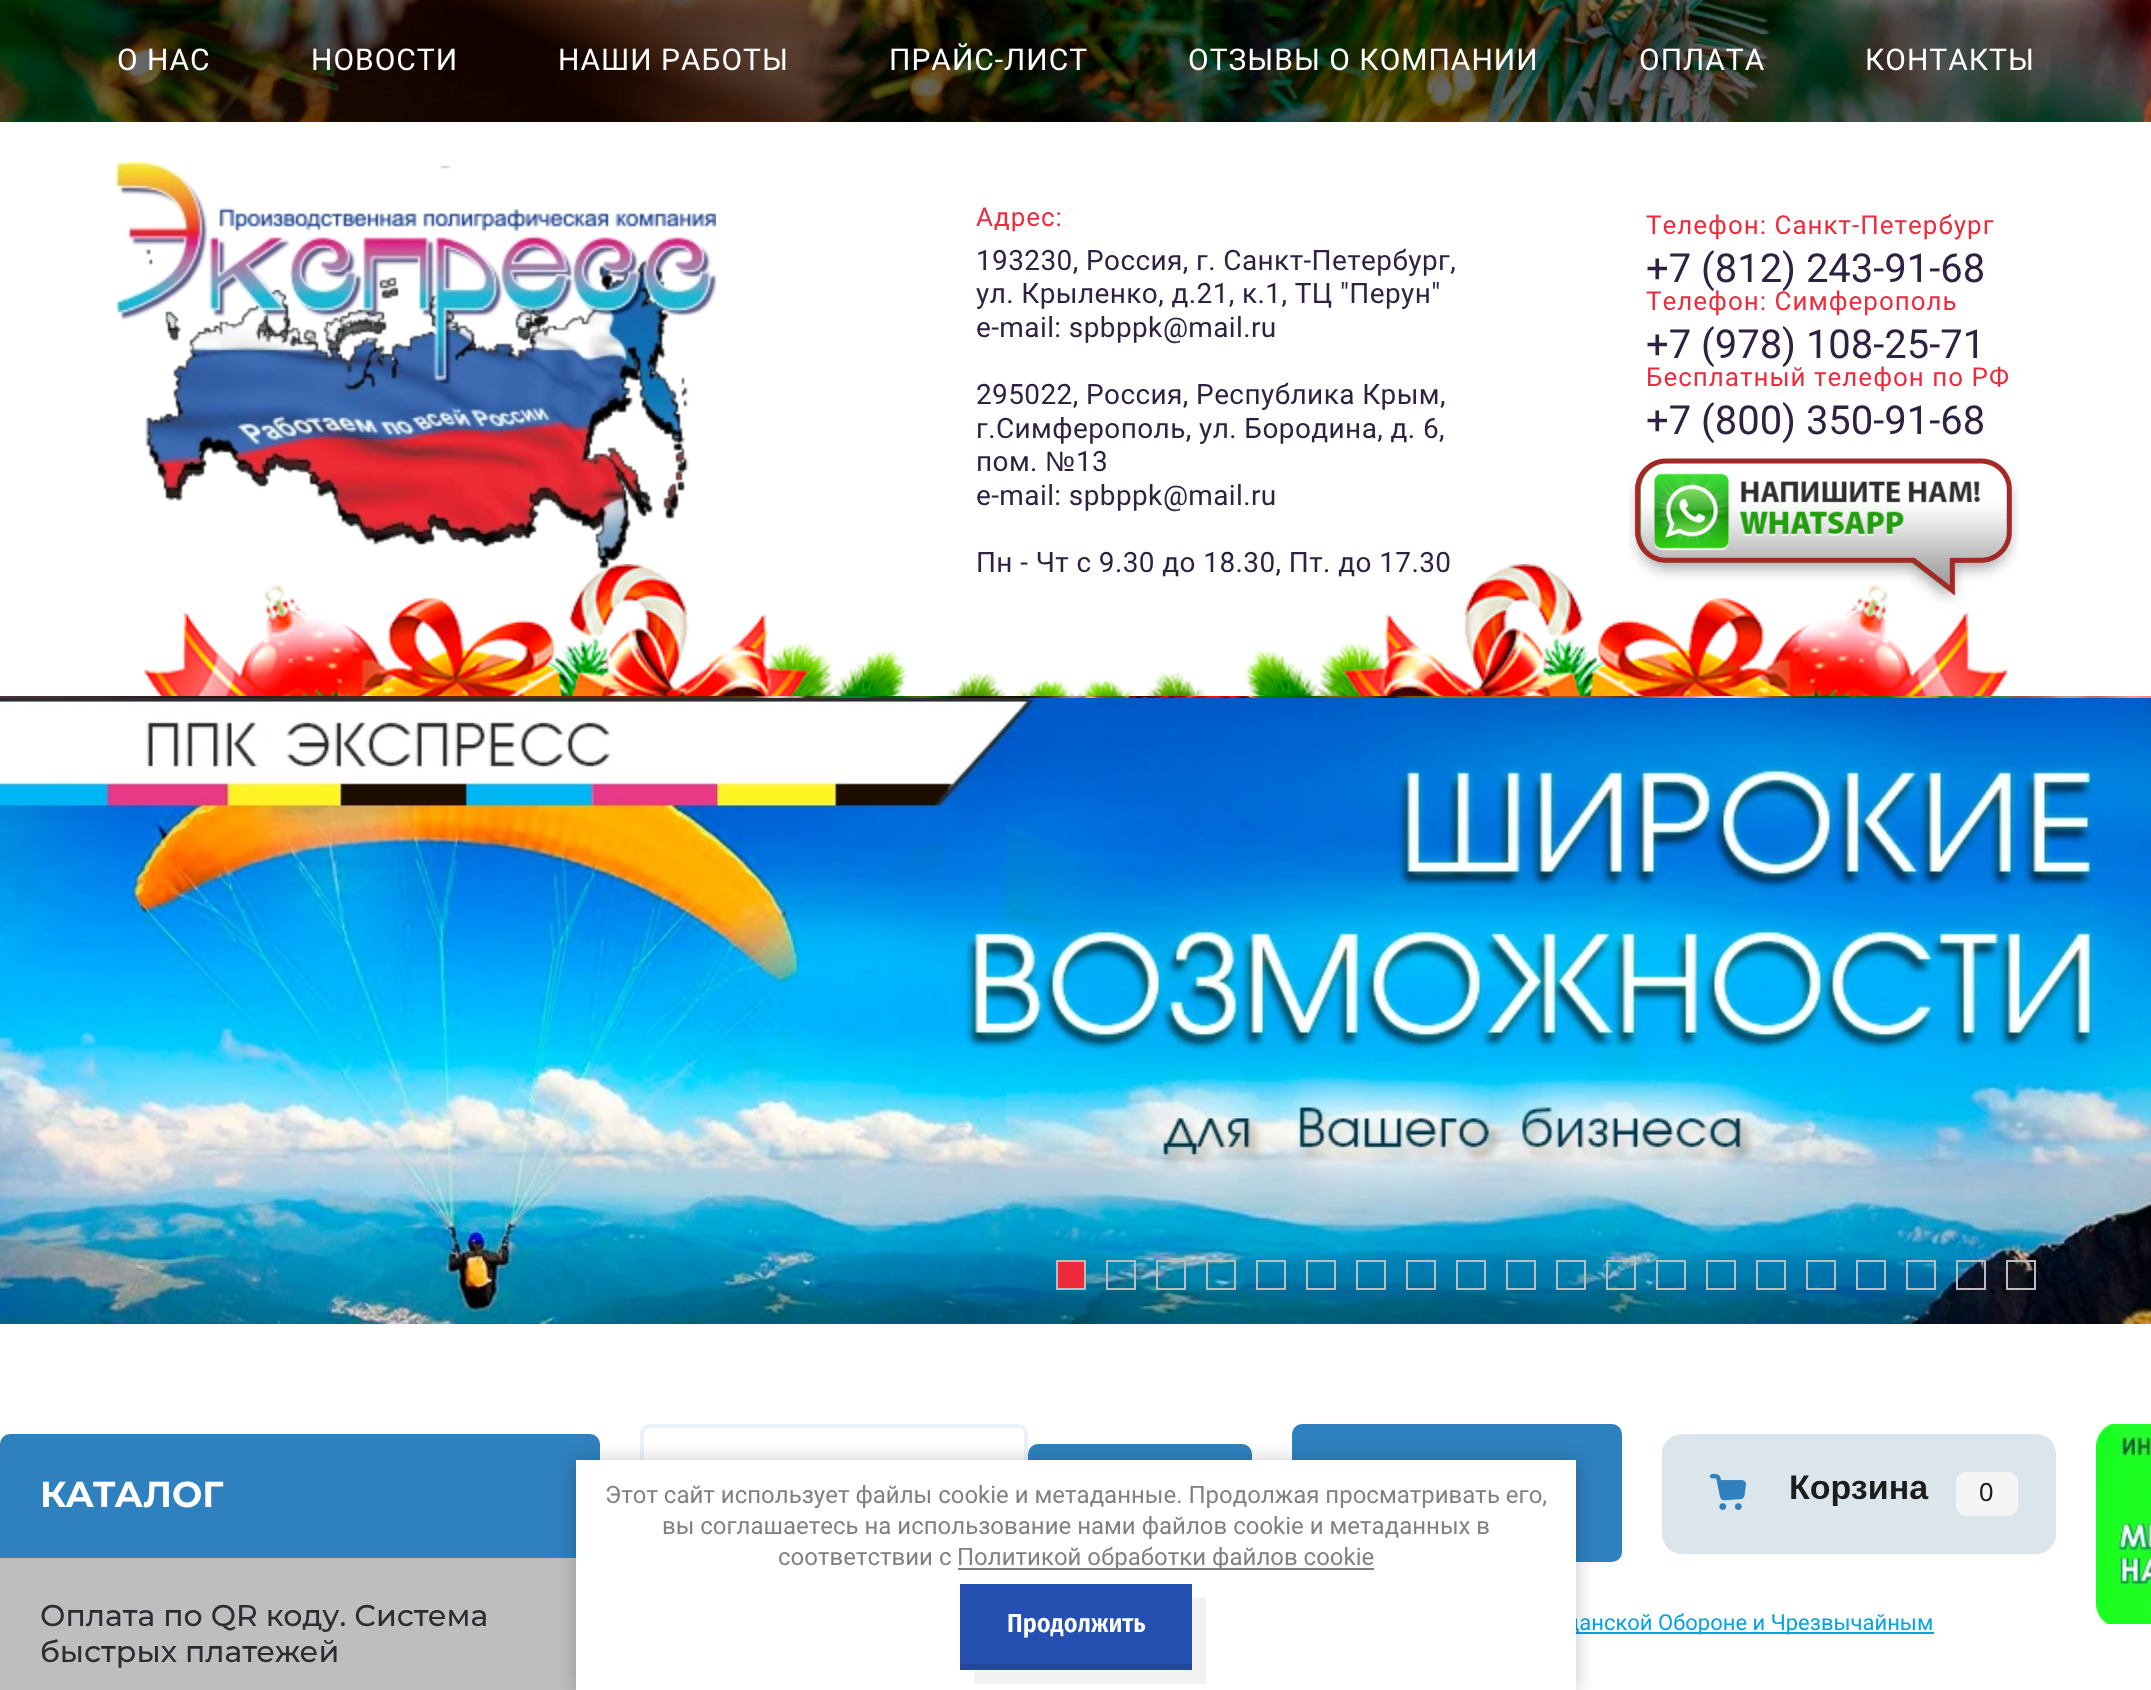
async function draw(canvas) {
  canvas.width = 2151;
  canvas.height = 1690;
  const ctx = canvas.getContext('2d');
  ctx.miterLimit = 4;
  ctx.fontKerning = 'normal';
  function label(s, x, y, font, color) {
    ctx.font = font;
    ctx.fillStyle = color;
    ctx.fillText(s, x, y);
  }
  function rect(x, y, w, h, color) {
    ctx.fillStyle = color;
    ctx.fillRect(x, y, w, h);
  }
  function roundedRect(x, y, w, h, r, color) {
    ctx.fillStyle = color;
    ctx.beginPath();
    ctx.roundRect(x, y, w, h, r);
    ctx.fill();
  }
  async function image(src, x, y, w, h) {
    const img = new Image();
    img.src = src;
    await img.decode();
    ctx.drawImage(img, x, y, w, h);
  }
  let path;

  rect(0, 0, 2151, 1690, '#fff');
  await image('assets/img1.png', 0, 0, 2151, 700);
  ctx.fillStyle = '#00000099';
  ctx.filter = 'blur(22px)';
  ctx.beginPath();
  ctx.rect(0, -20, 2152, 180);
  ctx.fill();
  ctx.filter = 'none';
  ctx.letterSpacing = '1px';
  label('О НАС', 117, 70, '30px Roboto', '#fff');
  label('НОВОСТИ', 311, 70, '30px Roboto', '#fff');
  label('НАШИ РАБОТЫ', 558, 70, '30px Roboto', '#fff');
  label('ПРАЙС-ЛИСТ', 889, 70, '30px Roboto', '#fff');
  label('ОТЗЫВЫ О КОМПАНИИ', 1188, 70, '30px Roboto', '#fff');
  label('ОПЛАТА', 1639, 70, '30px Roboto', '#fff');
  label('КОНТАКТЫ', 1865, 70, '30px Roboto', '#fff');
  rect(0, 122, 2151, 574, '#fff');
  await image('assets/img4.png', 144, 564, 1864, 132);
  await image('assets/img2.png', 116, 162, 600, 407);
  label('Адрес:', 976, 226, '26px Roboto', '#ee2b3d');
  ctx.letterSpacing = '0.4px';
  label('193230, Россия, г. Санкт-Петербург,', 976, 270, '28px Roboto', '#2f2142');
  label('ул. Крыленко, д.21, к.1, ТЦ "Перун"', 976, 303, '28px Roboto', '#2f2142');
  label('e-mail: spbppk@mail.ru', 976, 337, '28px Roboto', '#2f2142');
  label('295022, Россия, Республика Крым,', 976, 404, '28px Roboto', '#2f2142');
  label('г.Симферополь, ул. Бородина, д. 6,', 976, 438, '28px Roboto', '#2f2142');
  label('пом.', 976, 471, '28px Roboto', '#2f2142');
  label('№', 1045, 471, '28px Liberation Sans', '#2f2142');
  label('13', 1076, 471, '28px Roboto', '#2f2142');
  label('e-mail: spbppk@mail.ru', 976, 505, '28px Roboto', '#2f2142');
  label('Пн - Чт с 9.30 до 18.30, Пт. до 17.30', 976, 572, '28px Roboto', '#2f2142');
  ctx.letterSpacing = '1px';
  label('Телефон: Санкт-Петербург', 1646, 234, '26px Roboto', '#ee2b3d');
  ctx.letterSpacing = '0px';
  label('+7 (812) 243-91-68', 1646, 282, '40px Roboto', '#2f2142');
  ctx.letterSpacing = '1px';
  label('Телефон: Симферополь', 1646, 310, '26px Roboto', '#ee2b3d');
  ctx.letterSpacing = '0px';
  label('+7 (978) 108-25-71', 1646, 358, '40px Roboto', '#2f2142');
  ctx.letterSpacing = '1px';
  label('Бесплатный телефон по РФ', 1646, 386, '26px Roboto', '#ee2b3d');
  ctx.letterSpacing = '0px';
  label('+7 (800) 350-91-68', 1646, 434, '40px Roboto', '#2f2142');
  await image('assets/img3.png', 1629, 458, 390, 146);
  await image('assets/img5.png', 0, 698, 2151, 626);
  ctx.fillStyle = '#ee2b3d';
  ctx.beginPath();
  ctx.rect(1057, 1261, 28, 28);
  ctx.fill();
  ctx.strokeStyle = '#bdbdbd';
  ctx.lineWidth = 2;
  ctx.stroke();
  ctx.strokeRect(1107, 1261, 28, 28);
  ctx.strokeRect(1157, 1261, 28, 28);
  ctx.strokeRect(1207, 1261, 28, 28);
  ctx.strokeRect(1257, 1261, 28, 28);
  ctx.strokeRect(1307, 1261, 28, 28);
  ctx.strokeRect(1357, 1261, 28, 28);
  ctx.strokeRect(1407, 1261, 28, 28);
  ctx.strokeRect(1457, 1261, 28, 28);
  ctx.strokeRect(1507, 1261, 28, 28);
  ctx.strokeRect(1557, 1261, 28, 28);
  ctx.strokeRect(1607, 1261, 28, 28);
  ctx.strokeRect(1657, 1261, 28, 28);
  ctx.strokeRect(1707, 1261, 28, 28);
  ctx.strokeRect(1757, 1261, 28, 28);
  ctx.strokeRect(1807, 1261, 28, 28);
  ctx.strokeRect(1857, 1261, 28, 28);
  ctx.strokeRect(1907, 1261, 28, 28);
  ctx.strokeRect(1957, 1261, 28, 28);
  ctx.strokeRect(2007, 1261, 28, 28);
  ctx.fillStyle = '#2f80be';
  ctx.beginPath();
  ctx.roundRect(0, 1434, 600, 124, [10, 10, 0, 0]);
  ctx.fill();
  label('КАТАЛОГ', 40, 1507, 'bold 36px Montserrat', '#fff');
  rect(0, 1558, 576, 132, '#bebebe');
  label('Оплата по QR коду. Система', 40, 1626, '500 30px Montserrat', '#2a2e33');
  label('быстрых платежей', 40, 1662, '500 30px Montserrat', '#2a2e33');
  ctx.beginPath();
  ctx.roundRect(642, 1426, 384, 134, 8);
  ctx.strokeStyle = '#eaf2f9';
  ctx.lineWidth = 4;
  ctx.stroke();
  roundedRect(1028, 1444, 224, 98, 10, '#2f80be');
  roundedRect(1292, 1424, 330, 138, 10, '#2f80be');
  roundedRect(1662, 1434, 394, 120, 20, '#dbe6ec');
  await image('assets/img6.png', 1709, 1474, 37, 36);
  label('Корзина', 1789, 1499, 'bold 34px Liberation Sans', '#1c1c1c');
  roundedRect(1956, 1472, 62, 44, 10, '#f5f5f5');
  label('0', 1979, 1501, '26px Liberation Sans', '#1c1c1c');
  rect(1576, 1632, 358, 2, '#02a2e3');
  label('данской Обороне и Чрезвычайным', 1566, 1630, '22px Roboto', '#02a2e3');
  await image('assets/img7.png', 2096, 1424, 55, 200);
  ctx.fillStyle = '#0000003b';
  ctx.filter = 'blur(10px)';
  ctx.beginPath();
  ctx.rect(576, 1462, 1000, 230);
  ctx.fill();
  ctx.filter = 'none';
  rect(576, 1460, 1000, 230, '#fff');
  label('Этот сайт использует файлы cookie и метаданные. Продолжая просматривать его,', 605, 1503, '24px Roboto', '#808080');
  label('вы соглашаетесь на использование нами файлов cookie и метаданных в', 662, 1534, '24px Roboto', '#808080');
  label('соответствии с', 778, 1565, '24px Roboto', '#808080');
  rect(958, 1568, 416, 2, '#808080');
  label('Политикой обработки файлов cookie', 957, 1565, '24px Roboto', '#808080');
  ctx.fillStyle = '#f2f2f2';
  path = new Path2D('M974 1670V1684H1206V1598H1192V1670Z');
  ctx.fill(path);
  rect(960, 1584, 232, 80, '#254fb0');
  rect(960, 1664, 232, 6, '#21479e');
  label('Продолжить', 1007, 1632, '600 26px Fira Sans Condensed', '#fff');
}

draw(document.querySelector('canvas'));
